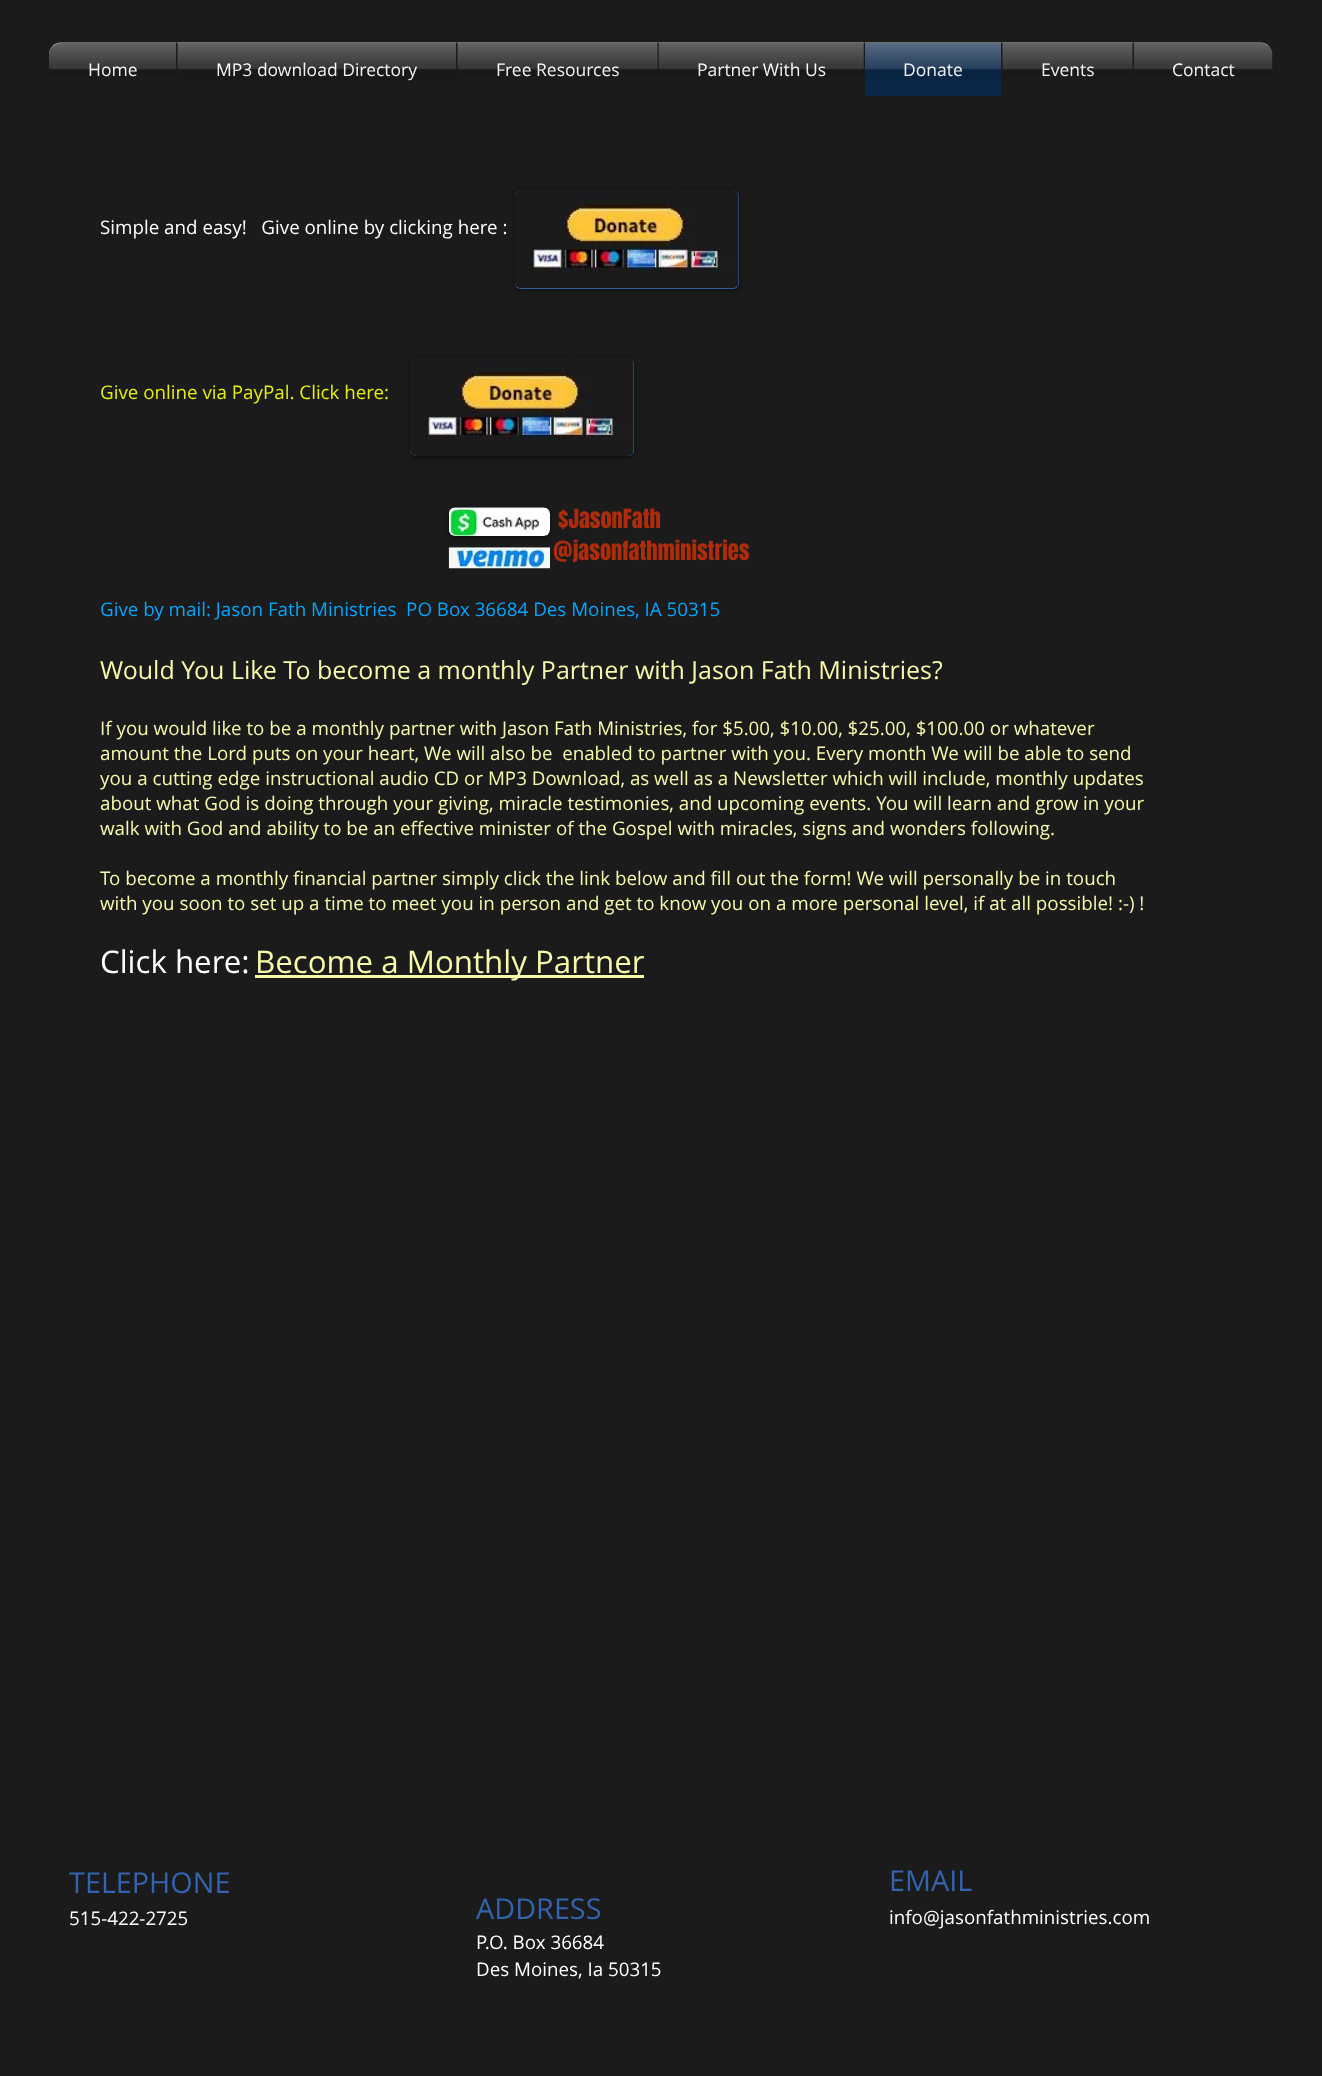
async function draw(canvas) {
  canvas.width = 1322;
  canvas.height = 2076;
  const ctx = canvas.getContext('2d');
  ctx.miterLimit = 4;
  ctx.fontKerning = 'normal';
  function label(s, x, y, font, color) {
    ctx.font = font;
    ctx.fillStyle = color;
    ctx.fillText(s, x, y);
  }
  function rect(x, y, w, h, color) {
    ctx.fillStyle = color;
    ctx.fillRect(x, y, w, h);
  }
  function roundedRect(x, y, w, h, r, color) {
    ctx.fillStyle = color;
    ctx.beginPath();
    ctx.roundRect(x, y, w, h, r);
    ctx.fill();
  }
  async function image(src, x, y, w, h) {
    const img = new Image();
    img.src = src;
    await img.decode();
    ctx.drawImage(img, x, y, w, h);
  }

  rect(0, 0, 1322, 2076, '#1b1b1b');
  await image('assets/img1.png', 49, 42, 1224, 14);
  ctx.beginPath();
  ctx.roundRect(49, 43, 127, 53, [13, 0, 0, 0]);
  ctx.fill();
  label('Home', 88, 76, '17.5px Open Sans', '#fff');
  await image('assets/img2.png', 49, 42, 127, 34);
  rect(176, 43, 280, 13, '#1b1b1b');
  label('MP3 download Directory', 216, 76, '17.5px Open Sans', '#fff');
  await image('assets/img3.png', 177, 42, 280, 38);
  rect(456, 43, 202, 26, '#1b1b1b');
  label('Free Resources', 496, 76, '17.5px Open Sans', '#fff');
  await image('assets/img4.png', 457, 42, 201, 34);
  rect(658, 43, 207, 13, '#1b1b1b');
  label('Partner With Us', 697, 76, '17.5px Open Sans', '#fff');
  await image('assets/img5.png', 658, 42, 206, 34);
  rect(865, 43, 136, 53, '#0b2749');
  label('Donate', 903, 76, '17.5px Open Sans', '#fff');
  await image('assets/img6.png', 865, 42, 137, 38);
  rect(1001, 43, 132, 26, '#1b1b1b');
  label('Events', 1041, 76, '17.5px Open Sans', '#fff');
  await image('assets/img7.png', 1002, 42, 131, 34);
  ctx.fillStyle = '#1b1b1b';
  ctx.beginPath();
  ctx.roundRect(1133, 43, 140, 53, [0, 13, 0, 0]);
  ctx.fill();
  label('Contact', 1172, 76, '17.5px Open Sans', '#fff');
  await image('assets/img8.png', 1134, 42, 139, 34);
  ctx.fillStyle = '#00000080';
  ctx.filter = 'blur(2px)';
  ctx.beginPath();
  ctx.roundRect(515, 191, 224, 99, 6);
  ctx.fill();
  ctx.filter = 'none';
  roundedRect(515, 190, 224, 99, 6, '#3364af');
  await image('assets/img9.png', 515, 190, 224, 99);
  label('Simple and easy!   Give online by clicking here :', 100, 234, '18.75px Open Sans', '#fff');
  label('Give online via PayPal. Click here:', 100, 399, '18.75px Open Sans', '#e4ee0a');
  label('$JasonFath', 558, 528, '22.5px Anton', '#ad2c0c');
  label('@jasonfathministries', 553, 560, '22.5px Anton', '#ad2c0c');
  label('Give by mail: Jason Fath Ministries  PO Box 36684 Des Moines, IA 50315', 100, 616, '18.75px Open Sans', '#00a6ff');
  label('Would You Like To become a monthly Partner with Jason Fath Ministries?', 100, 679, '25px Open Sans', '#f6f9aa');
  label('If you would like to be a monthly partner with Jason Fath Ministries, for $5.00, $10.00, $25.00, $100.00 or whatever', 100, 735, '18.75px Open Sans', '#f6f9aa');
  label('amount the Lord puts on your heart, We will also be  enabled to partner with you. Every month We will be able to send', 100, 760, '18.75px Open Sans', '#f6f9aa');
  label('you a cutting edge instructional audio CD or MP3 Download, as well as a Newsletter which will include, monthly updates', 100, 785, '18.75px Open Sans', '#f6f9aa');
  label('about what God is doing through your giving, miracle testimonies, and upcoming events. You will learn and grow in your', 100, 810, '18.75px Open Sans', '#f6f9aa');
  label('walk with God and ability to be an effective minister of the Gospel with miracles, signs and wonders following.', 100, 835, '18.75px Open Sans', '#f6f9aa');
  label('To become a monthly financial partner simply click the link below and fill out the form! We will personally be in touch', 100, 885, '18.75px Open Sans', '#f6f9aa');
  label('with you soon to set up a time to meet you in person and get to know you on a more personal level, if at all possible! :-) !', 100, 910, '18.75px Open Sans', '#f6f9aa');
  label('Click here:', 100, 973, '31.25px Open Sans', '#fff');
  rect(255, 975, 389, 3, '#f6f9aa');
  label('Become a Monthly Partner', 255, 973, '31.25px Open Sans', '#f6f9aa');
  ctx.fillStyle = '#00000080';
  ctx.filter = 'blur(2px)';
  ctx.beginPath();
  ctx.roundRect(410, 359, 224, 99, 6);
  ctx.fill();
  ctx.filter = 'none';
  roundedRect(410, 358, 224, 98, 6, '#3364af');
  await image('assets/img10.png', 410, 358, 224, 98);
  ctx.fillStyle = '#00000080';
  ctx.filter = 'blur(2px)';
  ctx.beginPath();
  ctx.roundRect(449, 509, 101, 29, 6);
  ctx.fill();
  ctx.filter = 'none';
  roundedRect(449, 508, 101, 28, 6, '#3364af');
  await image('assets/img11.png', 449, 507, 101, 29);
  await image('assets/img12.png', 448, 547, 102, 22);
  label('TELEPHONE', 69, 1893, '28.75px Open Sans', '#3364af');
  label('EMAIL', 889, 1891, '28.75px Open Sans', '#3364af');
  label('515-422-2725', 69, 1925, '18.75px Open Sans', '#fff');
  label('ADDRESS', 476, 1919, '28.75px Open Sans', '#3364af');
  label('info@jasonfathministries.com', 889, 1924, '18.75px Open Sans', '#fff');
  label('P.O. Box 36684', 476, 1949, '18.75px Open Sans', '#fff');
  label('Des Moines, Ia 50315', 476, 1976, '18.75px Open Sans', '#fff');
}

draw(document.querySelector('canvas'));
